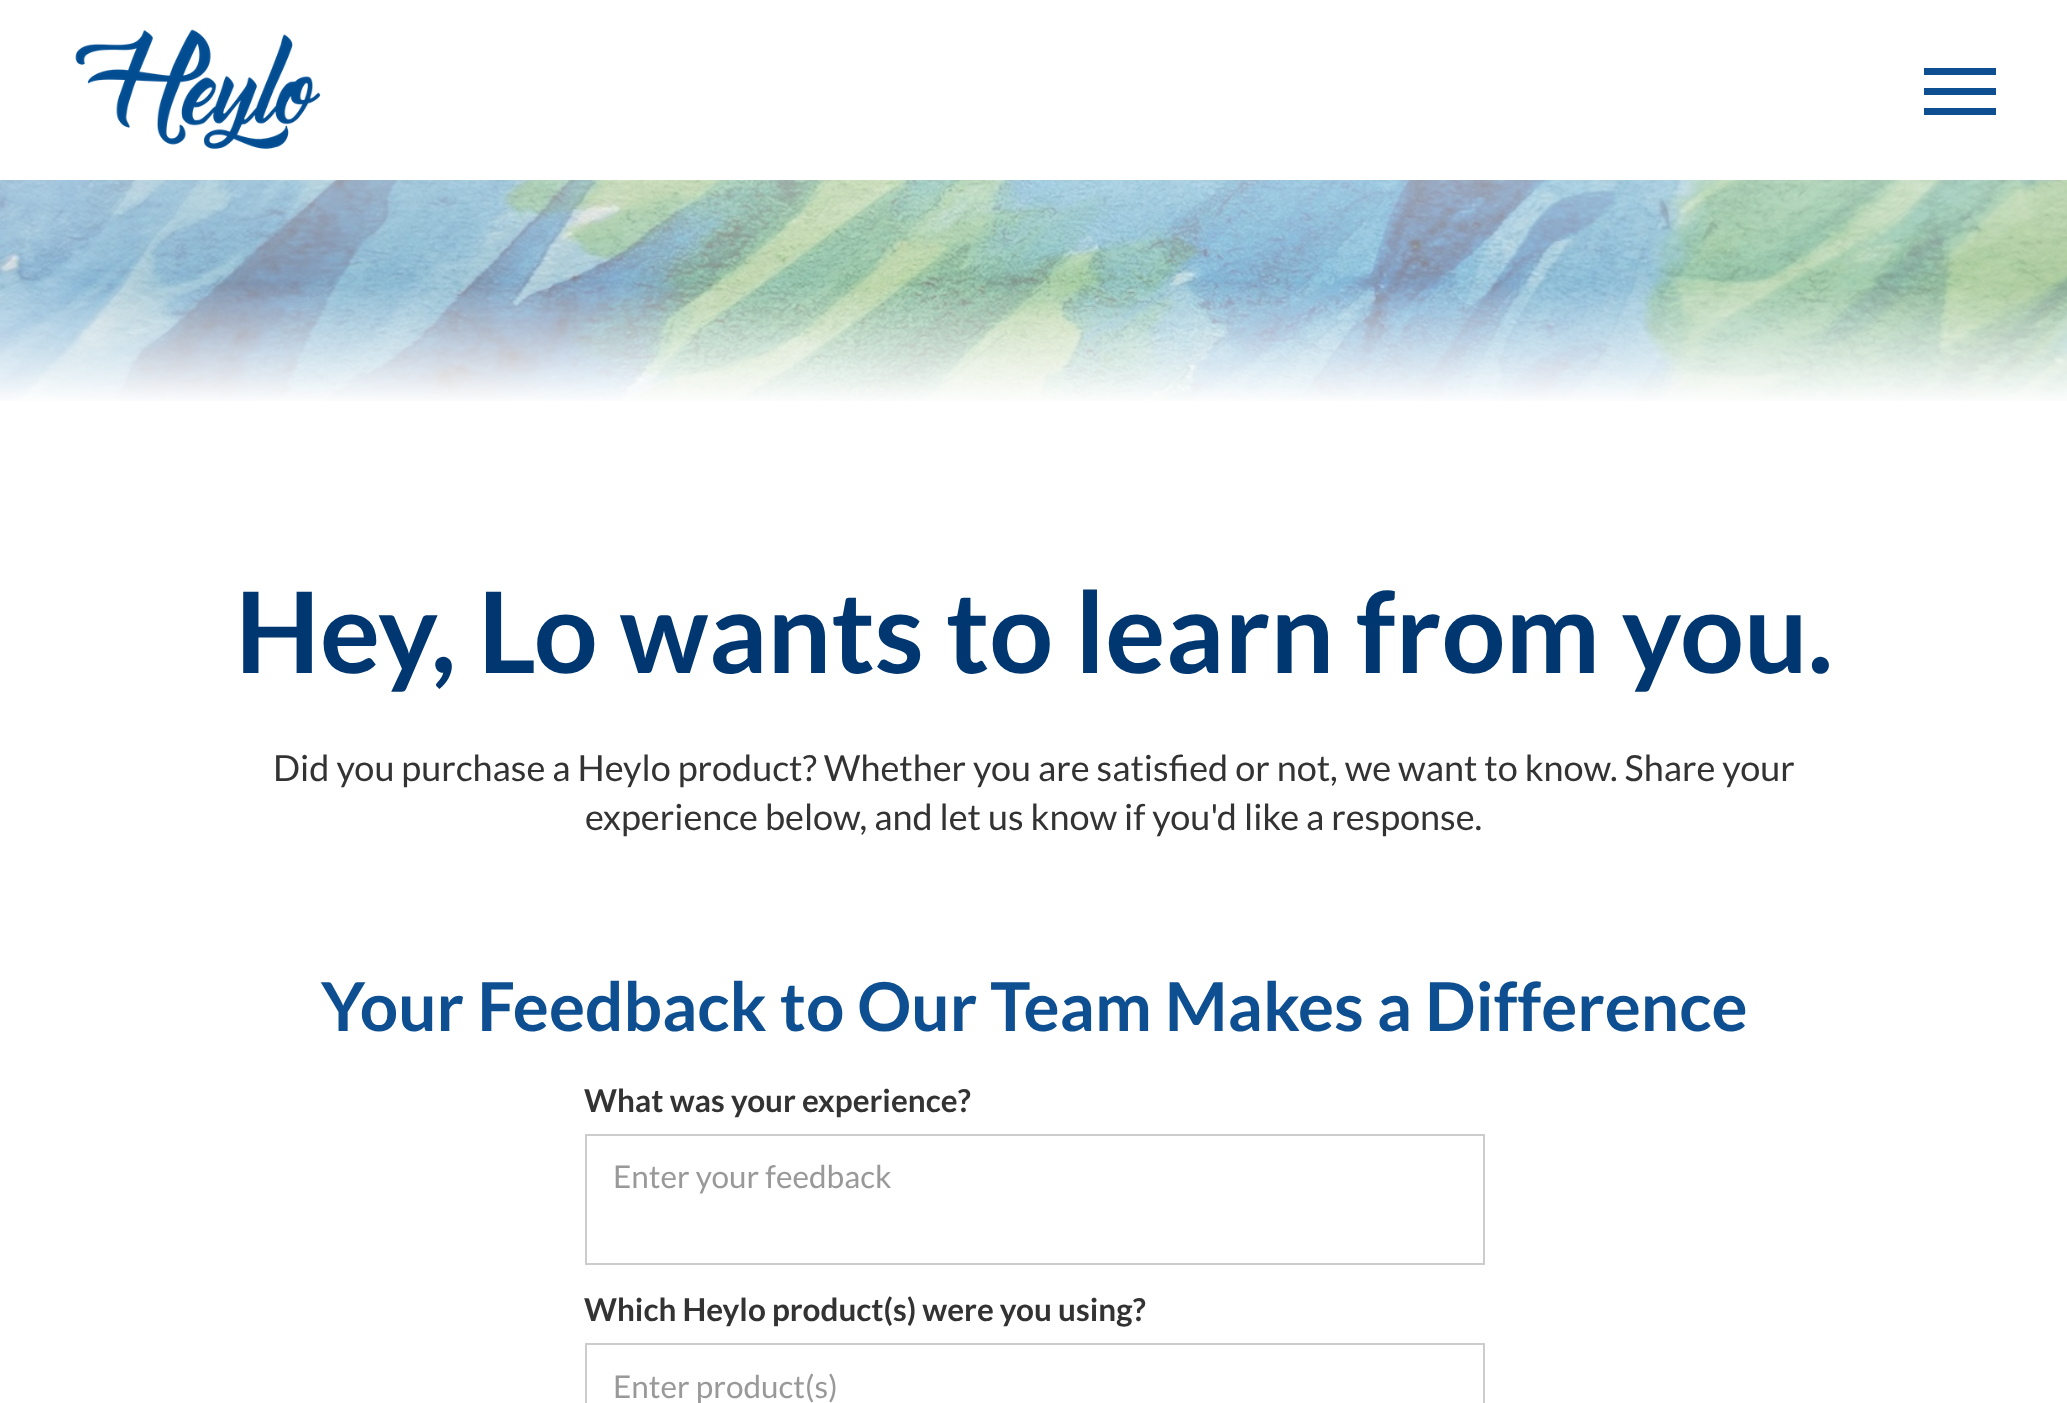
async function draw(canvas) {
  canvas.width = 2067;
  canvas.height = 1403;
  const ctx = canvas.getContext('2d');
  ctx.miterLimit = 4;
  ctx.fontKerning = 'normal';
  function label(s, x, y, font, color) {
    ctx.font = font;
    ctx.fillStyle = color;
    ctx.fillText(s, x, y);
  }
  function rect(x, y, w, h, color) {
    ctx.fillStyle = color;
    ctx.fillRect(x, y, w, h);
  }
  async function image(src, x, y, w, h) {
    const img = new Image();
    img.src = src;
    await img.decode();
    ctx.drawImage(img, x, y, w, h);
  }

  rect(0, 0, 2067, 1403, '#fff');
  await image('assets/img1.png', 75, 29, 246, 120);
  rect(1924, 68, 72, 7, '#0d4f91');
  rect(1924, 88, 72, 7, '#0d4f91');
  rect(1924, 108, 72, 7, '#0d4f91');
  await image('assets/img2.png', 0, 180, 2067, 221);
  label('Hey, Lo wants to learn from you.', 235, 673, 'bold 112.5px Lato', '#003770');
  label('Did you purchase a Heylo product? Whether you are satisfied or not, we want to know. Share your', 273, 781, '36px Lato', '#333');
  label('experience below, and let us know if you\'d like a response.', 585, 830, '36px Lato', '#333');
  label('Your Feedback to Our Team Makes a Difference', 321, 1031, 'bold 67.5px Lato', '#0d4f91');
  label('What was your experience?', 584, 1112, 'bold 31.5px Lato', '#333');
  ctx.strokeStyle = '#ccc';
  ctx.lineWidth = 2;
  ctx.strokeRect(586, 1135, 898, 129);
  label('Enter your feedback', 613, 1188, '31.5px Lato', '#999');
  label('Which Heylo product(s) were you using?', 584, 1321, 'bold 31.5px Lato', '#333');
  ctx.strokeRect(586, 1344, 898, 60);
  label('Enter product(s)', 613, 1398, '31.5px Lato', '#999');
}

draw(document.querySelector('canvas'));
